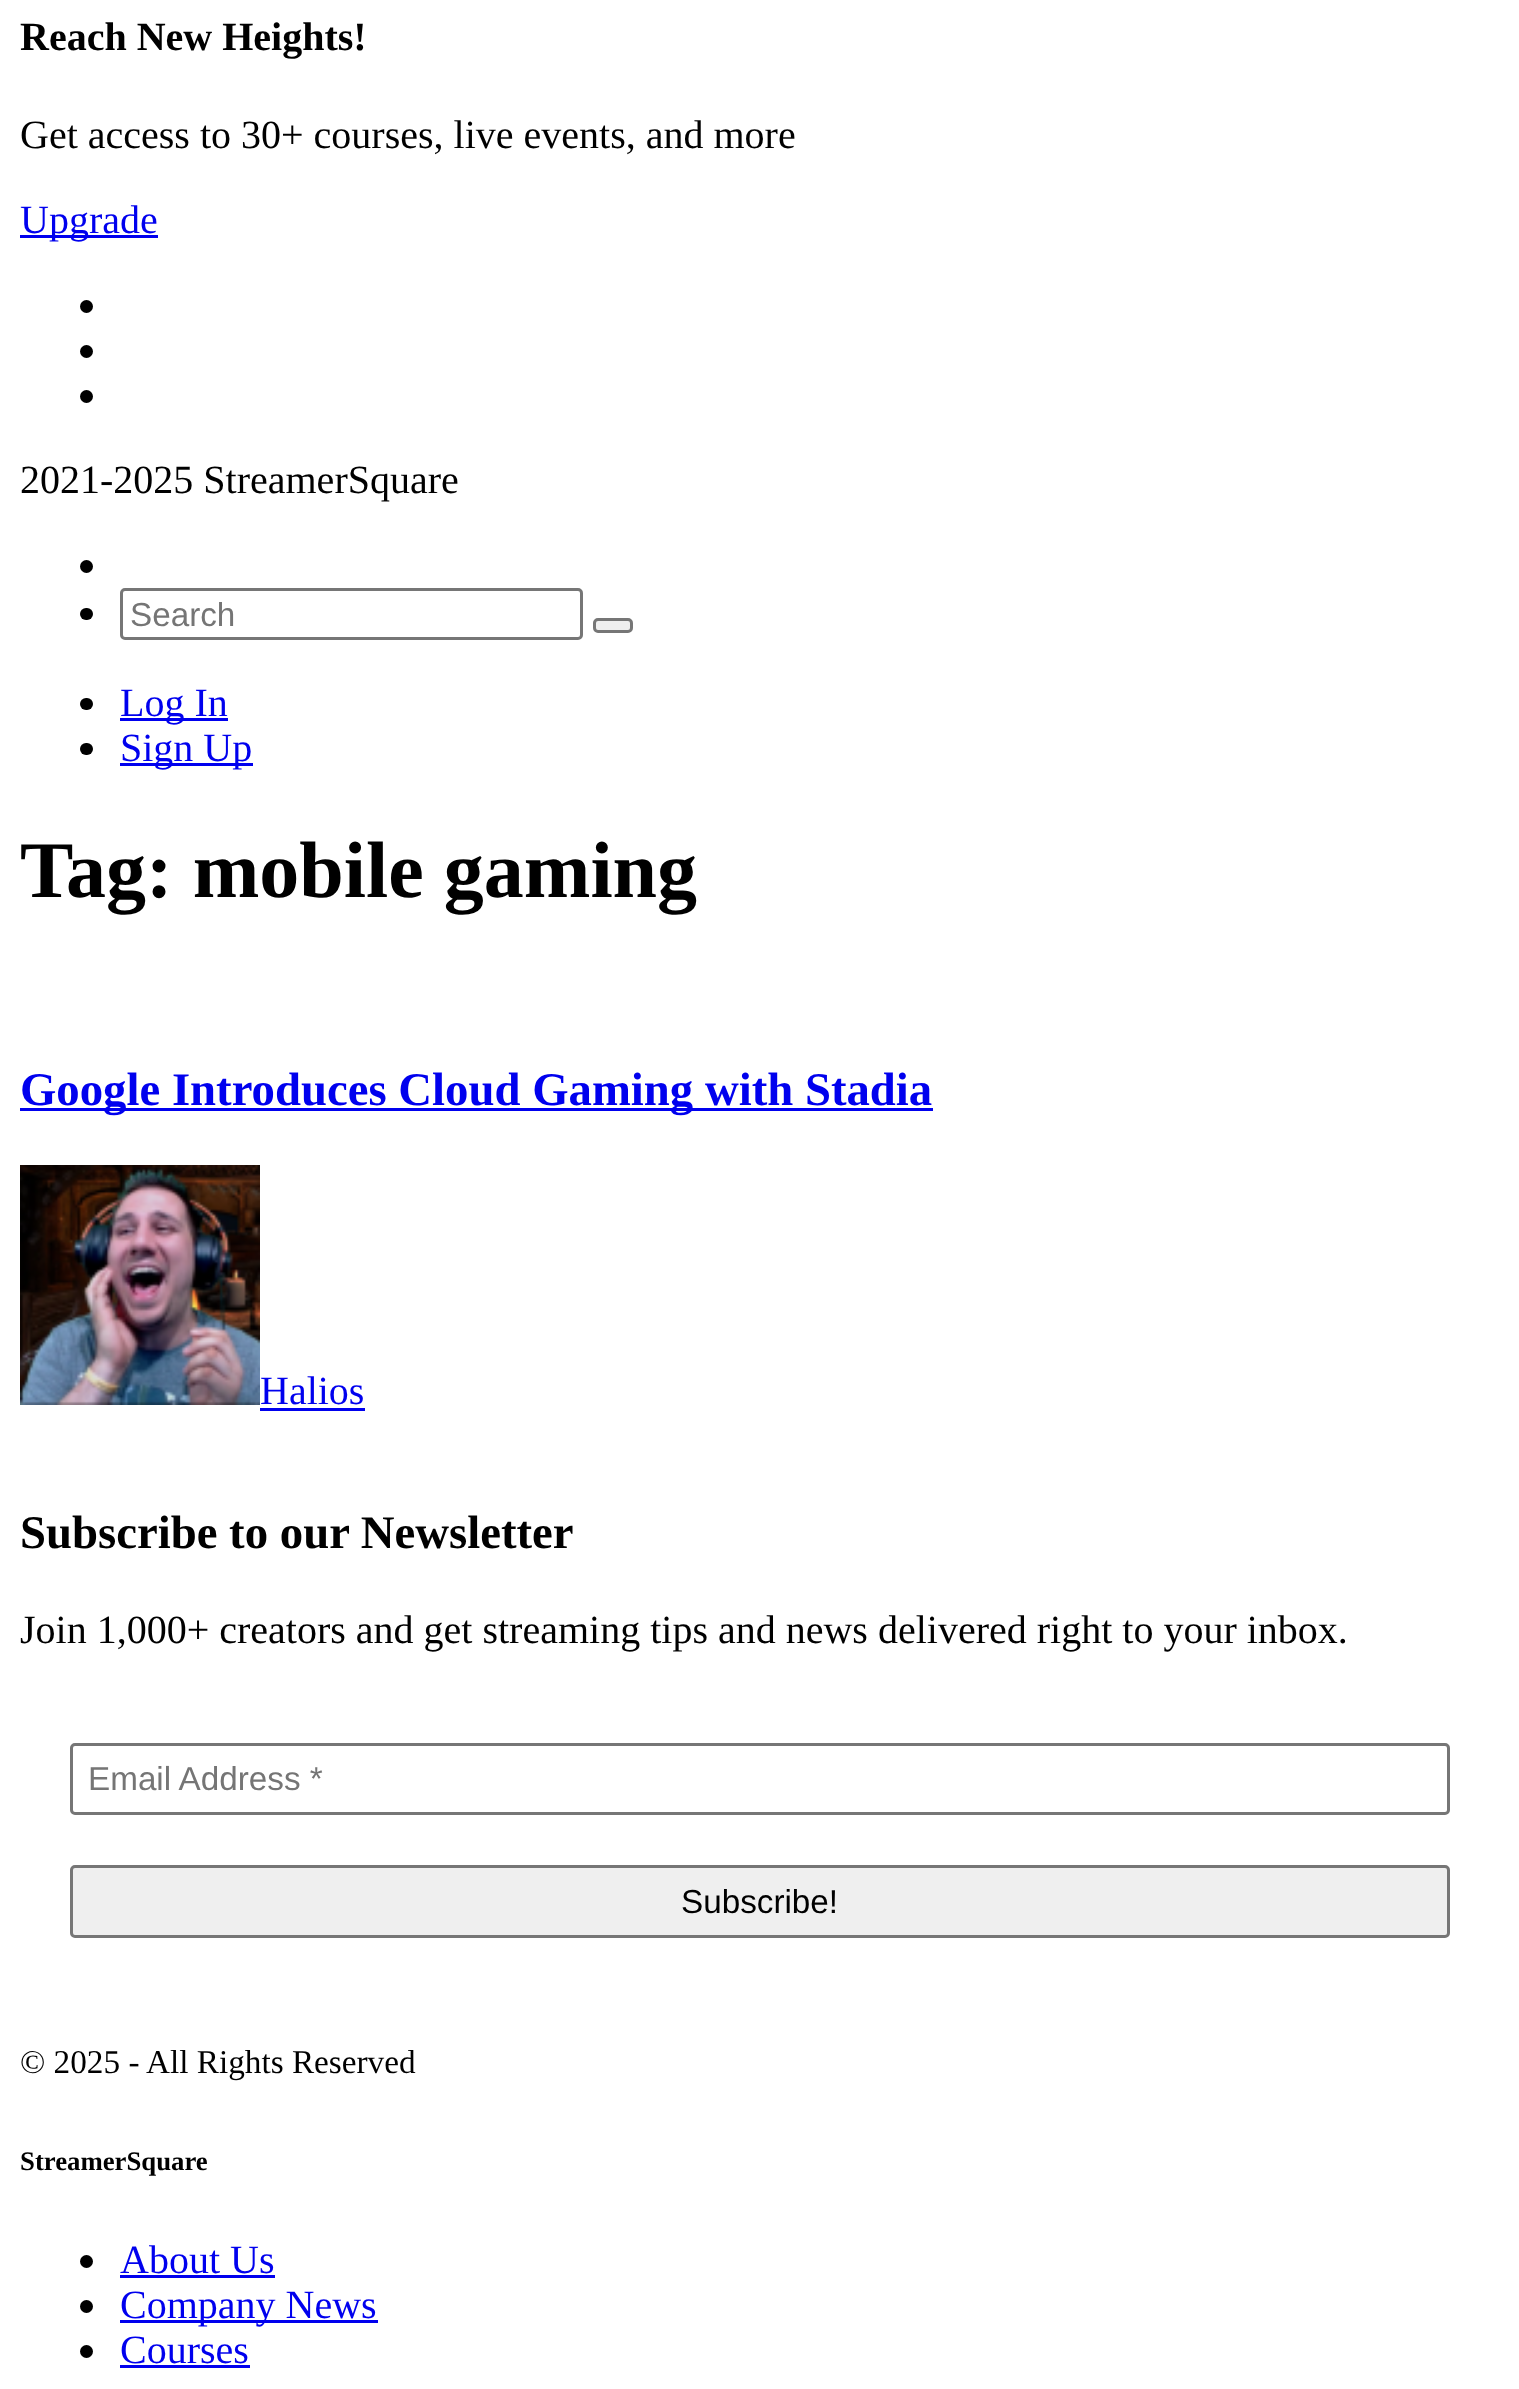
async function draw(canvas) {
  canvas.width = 1519;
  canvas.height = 2389;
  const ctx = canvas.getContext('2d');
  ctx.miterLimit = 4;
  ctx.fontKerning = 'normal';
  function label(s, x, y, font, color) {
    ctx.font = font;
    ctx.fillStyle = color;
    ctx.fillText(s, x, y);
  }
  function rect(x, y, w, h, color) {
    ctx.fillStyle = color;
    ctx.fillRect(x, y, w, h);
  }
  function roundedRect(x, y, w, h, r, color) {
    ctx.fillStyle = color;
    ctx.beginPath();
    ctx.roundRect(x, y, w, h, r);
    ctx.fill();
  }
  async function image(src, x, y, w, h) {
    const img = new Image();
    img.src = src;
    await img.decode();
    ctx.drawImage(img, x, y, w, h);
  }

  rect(0, 0, 1519, 2389, '#fff');
  label('Reach New Heights!', 20, 50, 'bold 40px Liberation Serif', '#000');
  label('Get access to 30+ courses, live events, and more', 20, 148, '40px Liberation Serif', '#000');
  rect(20, 235, 138, 3, '#00e');
  label('Upgrade', 20, 233, '40px Liberation Serif', '#00e');
  ctx.fillStyle = '#000';
  ctx.beginPath();
  ctx.arc(86.5, 306.5, 6.5, 0, 2 * Math.PI);
  ctx.fill();
  ctx.beginPath();
  ctx.arc(86.5, 351.5, 6.5, 0, 2 * Math.PI);
  ctx.fill();
  ctx.beginPath();
  ctx.arc(86.5, 396.5, 6.5, 0, 2 * Math.PI);
  ctx.fill();
  label('2021-2025 StreamerSquare', 20, 493, '40px Liberation Serif', '#000');
  ctx.beginPath();
  ctx.arc(86.5, 566.5, 6.5, 0, 2 * Math.PI);
  ctx.fill();
  roundedRect(80, 608, 13, 12, 6, '#000');
  ctx.beginPath();
  ctx.roundRect(121.5, 589.5, 460, 49, 3.5);
  ctx.strokeStyle = '#767676';
  ctx.lineWidth = 3;
  ctx.stroke();
  label('Search', 130, 626, '33.25px Liberation Sans', '#757575');
  ctx.fillStyle = '#efefef';
  ctx.beginPath();
  ctx.roundRect(594.5, 619.5, 37, 12, 3.5);
  ctx.fill();
  ctx.stroke();
  roundedRect(80, 698, 13, 12, 6, '#000');
  rect(120, 718, 108, 3, '#00e');
  label('Log In', 120, 716, '40px Liberation Serif', '#00e');
  roundedRect(80, 743, 13, 12, 6, '#000');
  rect(120, 763, 133, 3, '#00e');
  label('Sign Up', 120, 761, '40px Liberation Serif', '#00e');
  label('Tag: mobile gaming', 20, 897, 'bold 80px Liberation Serif', '#000');
  rect(20, 1108, 913, 3, '#00e');
  label('Google Introduces Cloud Gaming with Stadia', 20, 1105, 'bold 46.75px Liberation Serif', '#00e');
  await image('assets/img1.png', 20, 1165, 240, 240);
  label('Halios', 260, 1404, '40px Liberation Serif', '#00e');
  rect(260, 1408, 105, 3, '#00e');
  label('Subscribe to our Newsletter', 20, 1548, 'bold 46.75px Liberation Serif', '#000');
  label('Join 1,000+ creators and get streaming tips and news delivered right to your inbox.', 20, 1643, '40px Liberation Serif', '#000');
  ctx.beginPath();
  ctx.roundRect(71.5, 1744.5, 1377, 69, 3.5);
  ctx.stroke();
  label('Email Address *', 88, 1790, '33.25px Liberation Sans', '#757575');
  ctx.fillStyle = '#efefef';
  ctx.beginPath();
  ctx.roundRect(71.5, 1866.5, 1377, 70, 3.5);
  ctx.fill();
  ctx.stroke();
  label('Subscribe!', 681, 1913, '33.25px Liberation Sans', '#000');
  label('© 2025 - All Rights Reserved', 20, 2073, '33.25px Liberation Serif', '#000');
  label('StreamerSquare', 20, 2170, 'bold 26.75px Liberation Serif', '#000');
  ctx.beginPath();
  ctx.arc(86.5, 2261.5, 6.5, 0, 2 * Math.PI);
  ctx.fill();
  label('About Us', 120, 2273, '40px Liberation Serif', '#00e');
  rect(120, 2275, 155, 3, '#00e');
  ctx.fillStyle = '#000';
  ctx.beginPath();
  ctx.arc(86.5, 2306.5, 6.5, 0, 2 * Math.PI);
  ctx.fill();
  rect(120, 2320, 258, 3, '#00e');
  label('Company News', 120, 2318, '40px Liberation Serif', '#00e');
  ctx.fillStyle = '#000';
  ctx.beginPath();
  ctx.arc(86.5, 2351.5, 6.5, 0, 2 * Math.PI);
  ctx.fill();
  label('Courses', 120, 2363, '40px Liberation Serif', '#00e');
  rect(120, 2365, 130, 3, '#00e');
}

draw(document.querySelector('canvas'));
